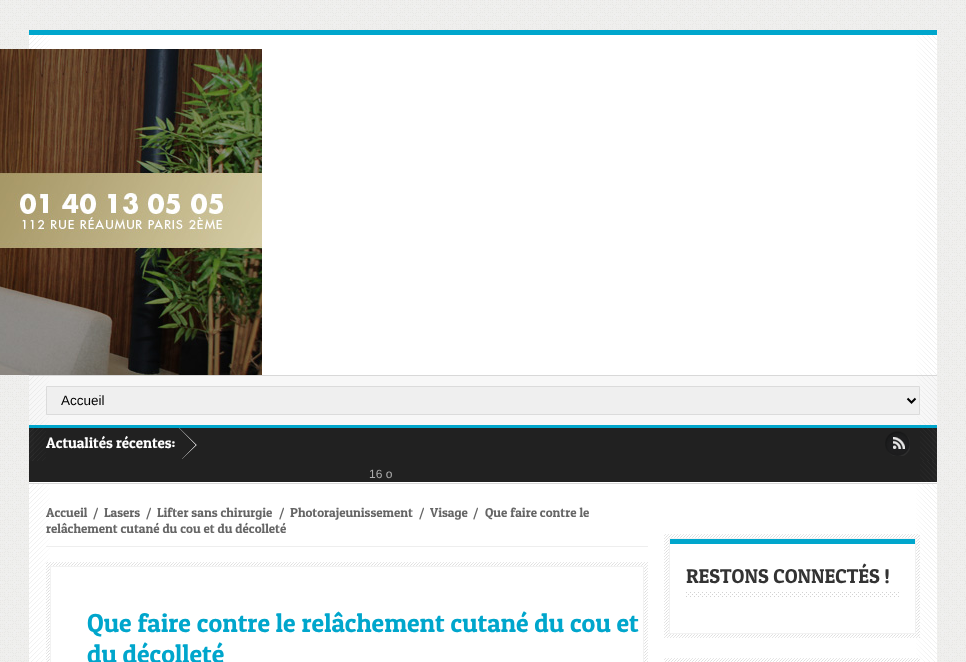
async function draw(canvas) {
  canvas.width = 966;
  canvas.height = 662;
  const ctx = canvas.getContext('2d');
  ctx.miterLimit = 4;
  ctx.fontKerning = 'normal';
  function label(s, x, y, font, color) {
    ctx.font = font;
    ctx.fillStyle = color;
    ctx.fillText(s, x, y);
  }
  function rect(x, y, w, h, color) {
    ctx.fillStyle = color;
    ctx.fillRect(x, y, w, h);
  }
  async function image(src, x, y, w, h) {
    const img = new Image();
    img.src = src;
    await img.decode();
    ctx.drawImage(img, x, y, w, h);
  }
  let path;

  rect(0, 0, 966, 662, '#fff');
  await image('assets/img1.png', 0, 0, 966, 662);
  rect(29, 35, 908, 627, '#fff');
  rect(29, 30, 908, 5, '#00a6cc');
  await image('assets/img2.png', 29, 35, 21, 14);
  await image('assets/img3.png', 916, 35, 21, 340);
  await image('assets/img4.png', 0, 49, 262, 326);
  rect(29, 376, 908, 49, '#f7f7f7');
  await image('assets/img5.png', 29, 376, 20, 49);
  rect(29, 375, 908, 1, '#d8d8d8');
  rect(29, 425, 908, 3, '#00a6cc');
  await image('assets/img6.png', 917, 376, 20, 49);
  ctx.fillStyle = '#efefef';
  ctx.beginPath();
  ctx.rect(46.5, 386.5, 873, 28);
  ctx.fill();
  ctx.strokeStyle = '#dbdbdb';
  ctx.stroke();
  path = new Path2D('M907.5 398.5L911.5 402.5L915.5 398.5');
  ctx.strokeStyle = '#000';
  ctx.lineWidth = 2;
  ctx.stroke(path);
  label('Accueil', 61, 405, '13.5px Liberation Sans', '#000');
  rect(29, 428, 891, 54, '#212121');
  await image('assets/img7.png', 29, 428, 17, 33);
  await image('assets/img8.png', 920, 428, 17, 54);
  await image('assets/img9.png', 179, 428, 18, 31);
  label('Actualités récentes:', 46, 448, '15px Patua One', '#fff');
  label('16 o', 369, 478, '12px Liberation Sans', '#acacac');
  await image('assets/img10.png', 885, 431, 25, 25);
  await image('assets/img11.png', 893, 437, 12, 12);
  await image('assets/img12.png', 29, 484, 21, 178);
  rect(29, 483, 908, 1, '#d8d8d8');
  await image('assets/img13.png', 916, 484, 21, 178);
  rect(46, 546, 602, 1, '#eee');
  label('Accueil', 46, 517, '13px Patua One', '#666');
  label('/', 93, 517, '13px Patua One', '#666');
  label('Lasers', 104, 517, '13px Patua One', '#666');
  label('/', 146, 517, '13px Patua One', '#666');
  label('Lifter sans chirurgie', 157, 517, '13px Patua One', '#666');
  label('/', 279, 517, '13px Patua One', '#666');
  label('Photorajeunissement', 290, 517, '13px Patua One', '#666');
  label('/', 419, 517, '13px Patua One', '#666');
  label('Visage', 430, 517, '13px Patua One', '#666');
  label('/', 473, 517, '13px Patua One', '#666');
  label('Que faire contre le', 485, 517, '13px Patua One', '#666');
  label('relâchement cutané du cou et du décolleté', 46, 533, '13px Patua One', '#666');
  await image('assets/img14.png', 46, 562, 602, 100);
  ctx.fillStyle = '#fff';
  ctx.beginPath();
  ctx.rect(50.5, 566.5, 593, 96);
  ctx.fill();
  ctx.strokeStyle = '#f2f2f2';
  ctx.lineWidth = 1;
  ctx.stroke();
  label('Que faire contre le relâchement cutané du cou et', 87, 632, '26px Patua One', '#00a6cc');
  label('du décolleté', 87, 663, '26px Patua One', '#00a6cc');
  await image('assets/img15.png', 664, 534, 256, 104);
  rect(670, 544, 245, 89, '#fff');
  ctx.strokeRect(669.5, 538.5, 246, 95);
  rect(670, 539, 245, 5, '#00a6cc');
  await image('assets/img16.png', 686, 592, 213, 5);
  label('RESTONS CONNECTÉS !', 686, 583, '20px Patua One', '#333');
  await image('assets/img17.png', 664, 658, 256, 4);
}

draw(document.querySelector('canvas'));
